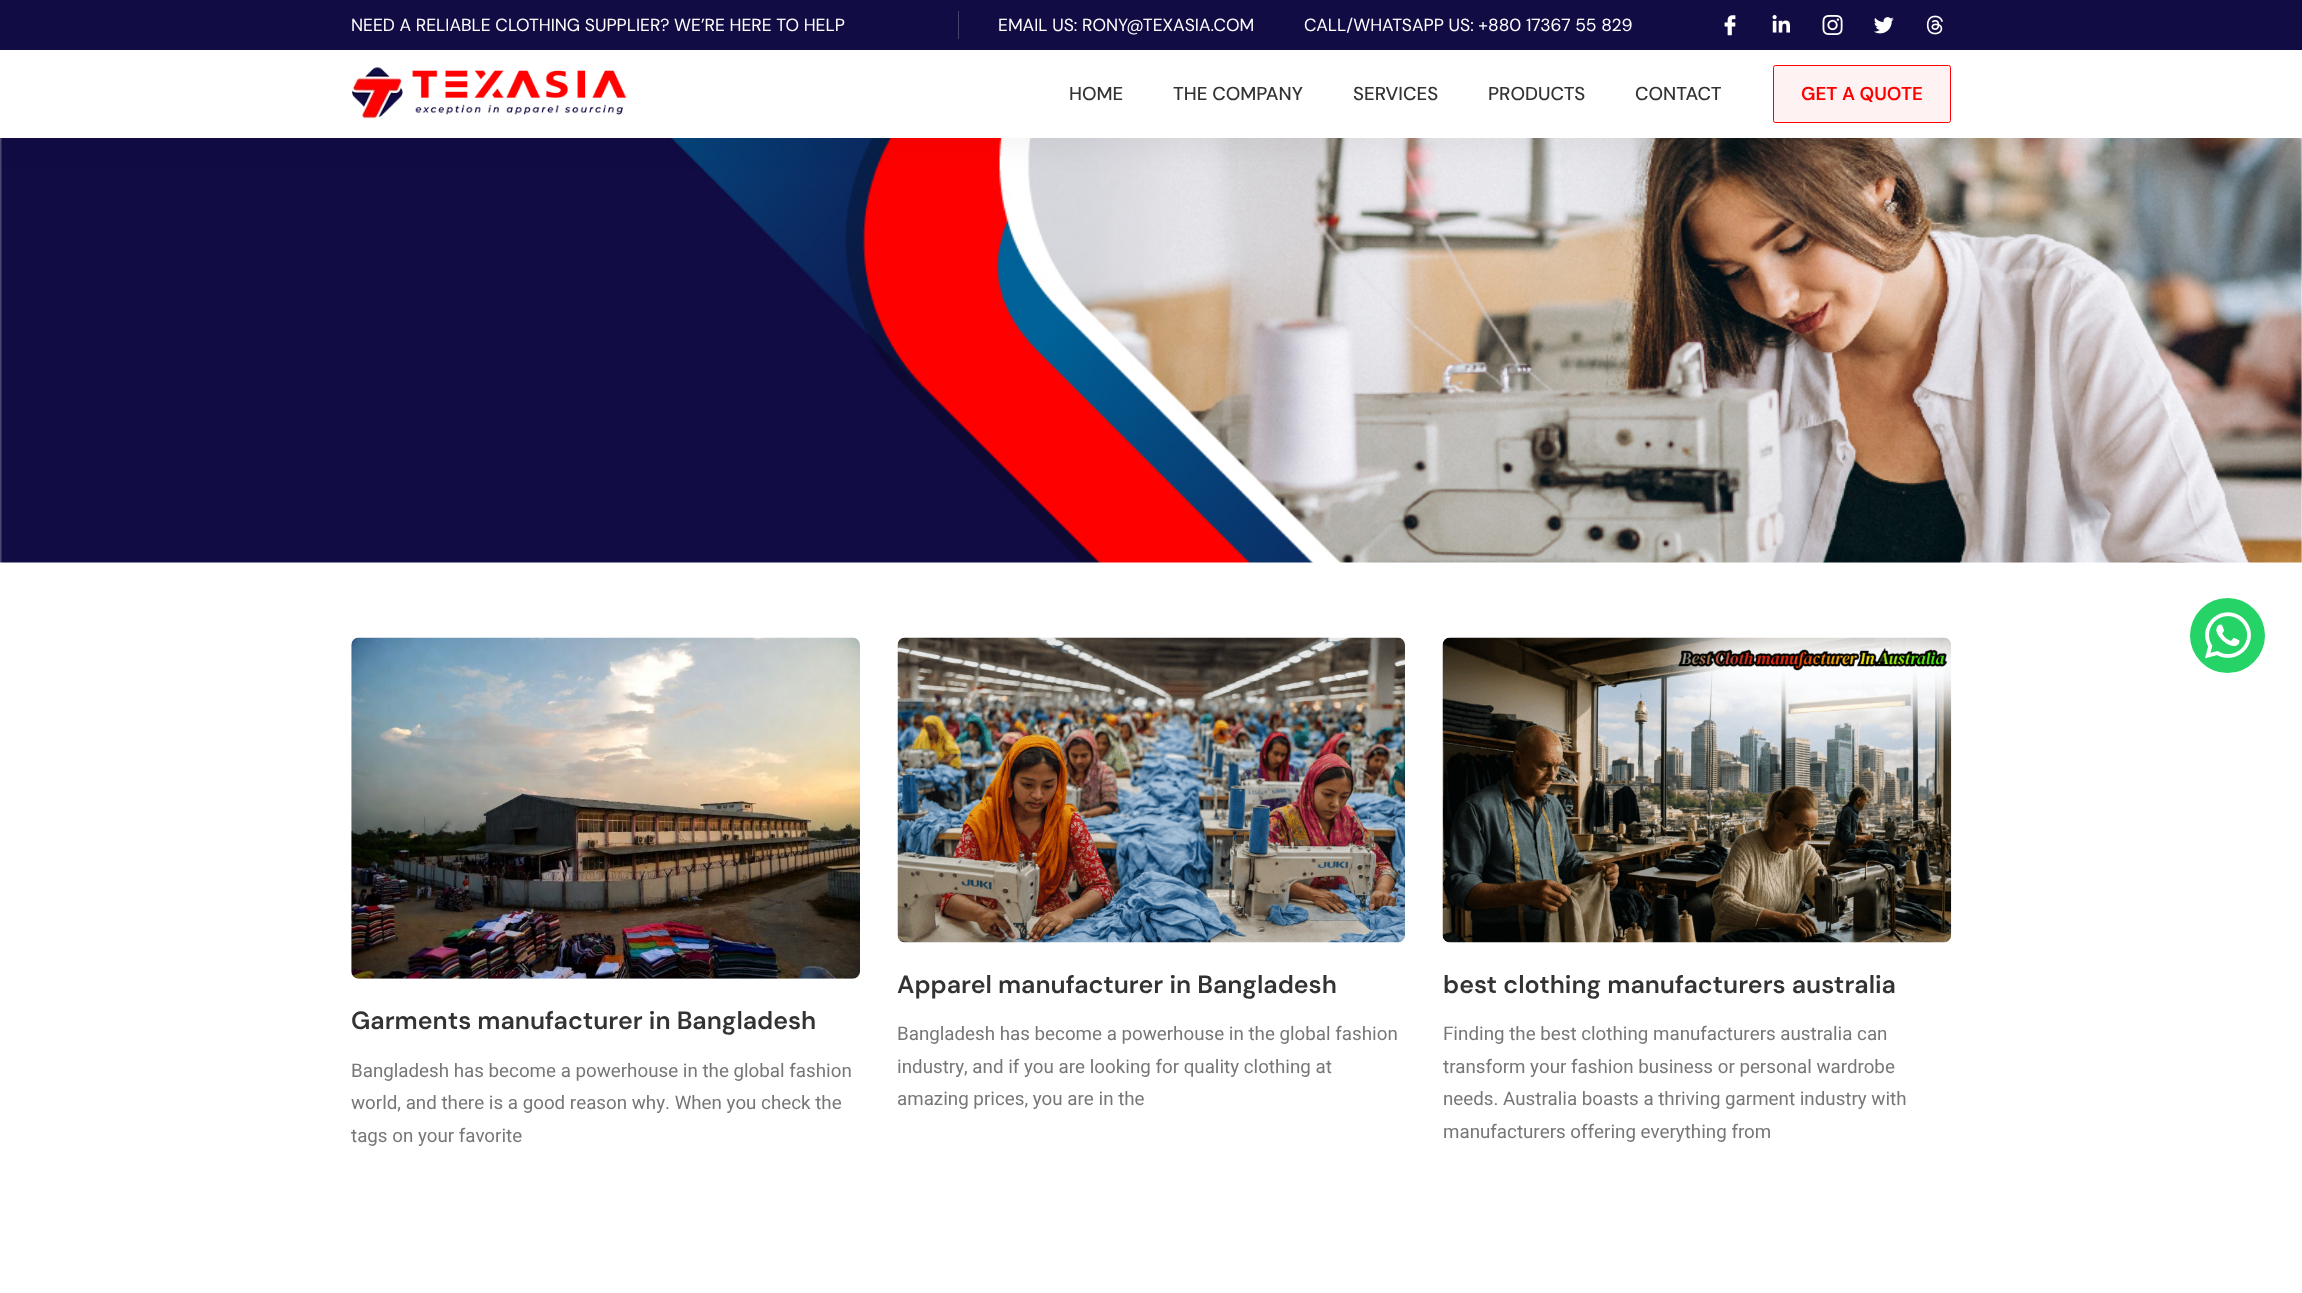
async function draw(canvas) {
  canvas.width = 2302;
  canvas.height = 1293;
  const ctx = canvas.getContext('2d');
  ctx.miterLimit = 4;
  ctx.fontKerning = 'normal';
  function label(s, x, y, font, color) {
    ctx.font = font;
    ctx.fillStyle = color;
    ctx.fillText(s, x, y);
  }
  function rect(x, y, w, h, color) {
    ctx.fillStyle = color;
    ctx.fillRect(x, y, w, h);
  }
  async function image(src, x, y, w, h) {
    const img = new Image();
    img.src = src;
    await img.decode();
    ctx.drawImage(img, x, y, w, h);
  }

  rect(0, 0, 2302, 1293, '#fff');
  await image('assets/img8.png', 0, 138, 2302, 425);
  ctx.fillStyle = '#0000000d';
  ctx.filter = 'blur(15.5px)';
  ctx.beginPath();
  ctx.rect(0, 56, 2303, 88);
  ctx.fill();
  ctx.filter = 'none';
  rect(0, 0, 2302, 50, '#110c44');
  label('NEED A RELIABLE CLOTHING SUPPLIER? WE’RE HERE TO HELP', 351, 31, '17.5px DM Sans', '#fff');
  rect(958, 11, 1, 28, '#45416d');
  label('EMAIL US: RONY@TEXASIA.COM', 998, 31, '17.5px DM Sans', '#fff');
  label('CALL/WHATSAPP US: +880 17367 55 829', 1304, 31, '17.5px DM Sans', '#fff');
  await image('assets/img1.png', 1724, 15, 12, 21);
  await image('assets/img2.png', 1772, 15, 18, 18);
  await image('assets/img3.png', 1822, 15, 21, 20);
  await image('assets/img4.png', 1874, 17, 20, 17);
  await image('assets/img5.png', 1926, 15, 17, 20);
  rect(0, 50, 2302, 88, '#fff');
  await image('assets/img6.png', 351, 67, 276, 53);
  label('HOME', 1069, 100, '500 18.75px DM Sans', '#333');
  label('THE COMPANY', 1173, 100, '500 18.75px DM Sans', '#333');
  label('SERVICES', 1353, 100, '500 18.75px DM Sans', '#333');
  label('PRODUCTS', 1488, 100, '500 18.75px DM Sans', '#333');
  label('CONTACT', 1635, 100, '500 18.75px DM Sans', '#333');
  ctx.fillStyle = '#fff2f2';
  ctx.beginPath();
  ctx.roundRect(1773.5, 65.5, 177, 57, 2);
  ctx.fill();
  ctx.strokeStyle = '#f00';
  ctx.stroke();
  label('GET A QUOTE', 1801, 100, '600 18.75px DM Sans', '#f00');
  ctx.fillStyle = '#25d366';
  ctx.beginPath();
  ctx.arc(2227.5, 635.5, 37.5, 0, 2 * Math.PI);
  ctx.fill();
  await image('assets/img7.png', 2205, 612, 46, 47);
  await image('assets/img9.png', 351, 637, 509, 342);
  label('Garments manufacturer in Bangladesh', 351, 1029, '600 25px DM Sans', '#333');
  label('Bangladesh has become a powerhouse in the global fashion', 351, 1077, '18.75px Heebo', '#777');
  label('world, and there is a good reason why. When you check the', 351, 1109, '18.75px Heebo', '#777');
  label('tags on your favorite', 351, 1142, '18.75px Heebo', '#777');
  await image('assets/img10.png', 897, 637, 508, 306);
  label('Apparel manufacturer in Bangladesh', 897, 993, '600 25px DM Sans', '#333');
  label('Bangladesh has become a powerhouse in the global fashion', 897, 1040, '18.75px Heebo', '#777');
  label('industry, and if you are looking for quality clothing at', 897, 1073, '18.75px Heebo', '#777');
  label('amazing prices, you are in the', 897, 1105, '18.75px Heebo', '#777');
  await image('assets/img11.png', 1442, 637, 510, 306);
  label('best clothing manufacturers australia', 1443, 993, '600 25px DM Sans', '#333');
  label('Finding the best clothing manufacturers australia can', 1443, 1040, '18.75px Heebo', '#777');
  label('transform your fashion business or personal wardrobe', 1443, 1073, '18.75px Heebo', '#777');
  label('needs. Australia boasts a thriving garment industry with', 1443, 1105, '18.75px Heebo', '#777');
  label('manufacturers offering everything from', 1443, 1138, '18.75px Heebo', '#777');
}

draw(document.querySelector('canvas'));
